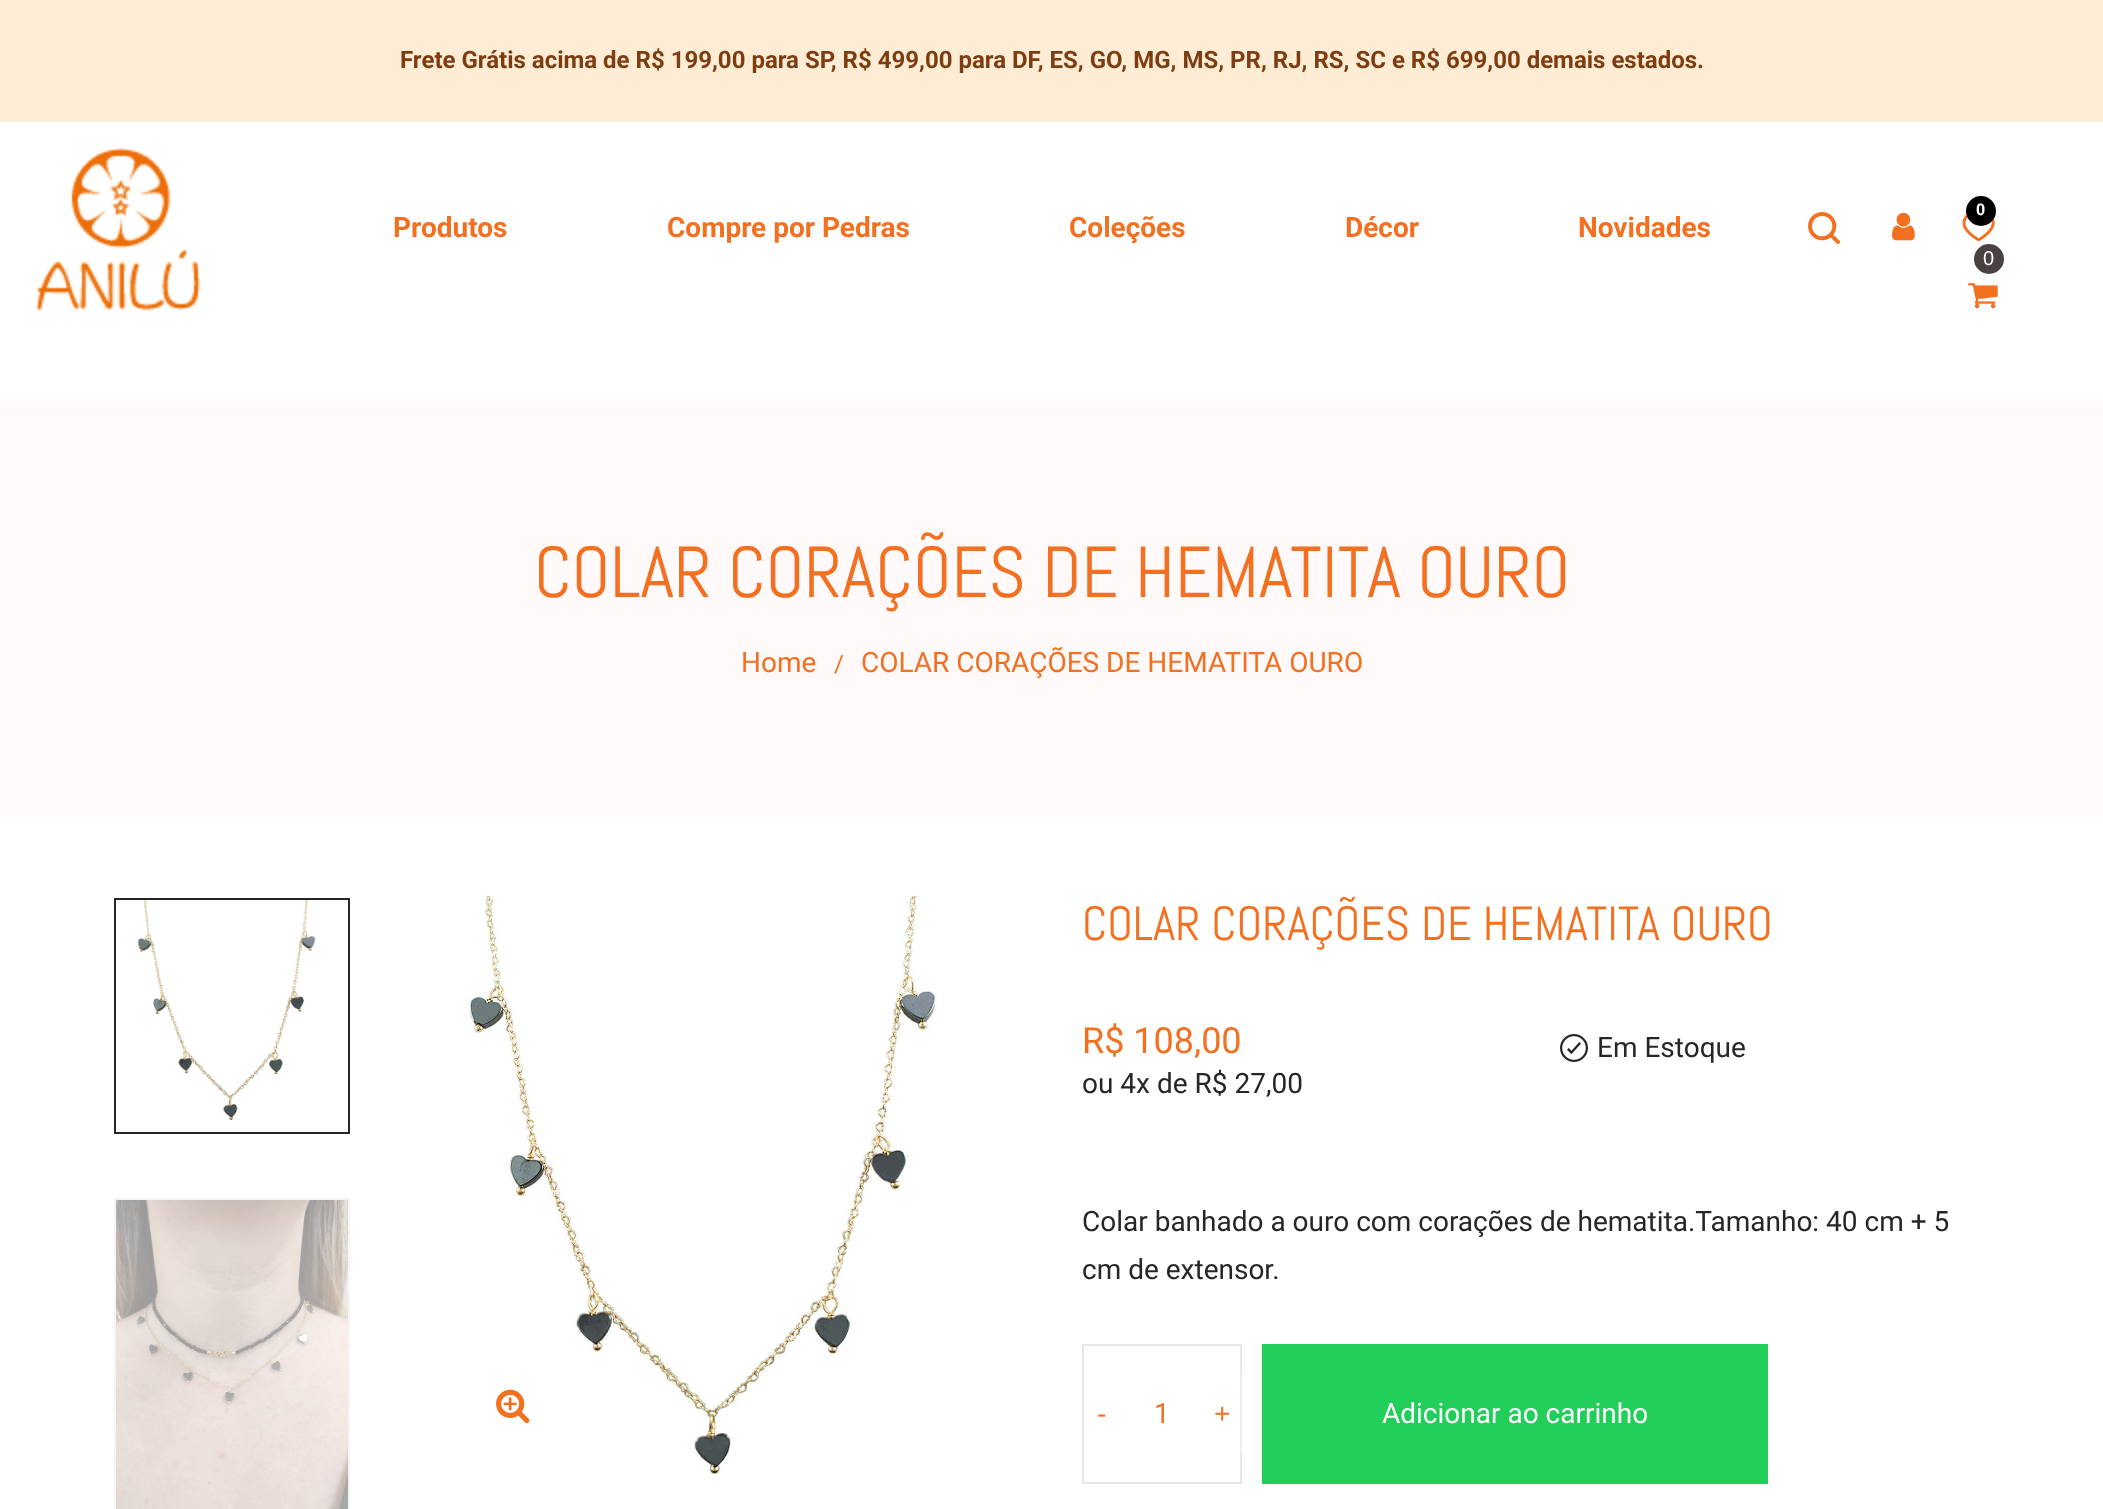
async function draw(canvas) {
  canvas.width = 2103;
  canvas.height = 1509;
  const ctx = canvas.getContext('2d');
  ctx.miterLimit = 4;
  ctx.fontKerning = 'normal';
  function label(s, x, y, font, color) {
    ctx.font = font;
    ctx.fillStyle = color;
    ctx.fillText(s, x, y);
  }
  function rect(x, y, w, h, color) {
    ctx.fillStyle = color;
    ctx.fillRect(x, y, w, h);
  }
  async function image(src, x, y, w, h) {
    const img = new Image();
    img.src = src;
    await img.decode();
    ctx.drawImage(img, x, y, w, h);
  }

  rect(0, 0, 2103, 1509, '#fff');
  rect(0, 0, 2103, 122, '#feecd5');
  label('Frete Grátis acima de R$ 199,00 para SP, R$ 499,00 para DF, ES, GO, MG, MS, PR, RJ, RS, SC e R$ 699,00 demais estados.', 400, 68, 'bold 24px Roboto', '#7d3d11');
  await image('assets/img1.png', 35, 147, 166, 164);
  label('Produtos', 393, 237, 'bold 28px Roboto', '#f37021');
  label('Compre por Pedras', 667, 237, 'bold 28px Roboto', '#f37021');
  label('Coleções', 1069, 237, 'bold 28px Roboto', '#f37021');
  label('Décor', 1345, 237, 'bold 28px Roboto', '#f37021');
  label('Novidades', 1578, 237, 'bold 28px Roboto', '#f37021');
  await image('assets/img2.png', 1962, 214, 33, 28);
  ctx.fillStyle = '#000';
  ctx.beginPath();
  ctx.arc(1981, 211, 15, 0, 2 * Math.PI);
  ctx.fill();
  label('0', 1976, 215, 'bold 16px Roboto', '#fff');
  await image('assets/img3.png', 1808, 212, 32, 32);
  await image('assets/img4.png', 1892, 212, 23, 29);
  ctx.fillStyle = '#4a4141';
  ctx.beginPath();
  ctx.arc(1989, 259, 15, 0, 2 * Math.PI);
  ctx.fill();
  label('0', 1983, 265, '20px Liberation Sans', '#fff');
  await image('assets/img5.png', 1968, 283, 30, 26);
  rect(0, 402, 2103, 414, '#fff9f9');
  label('COLAR CORAÇÕES DE HEMATITA OURO', 534, 597, '72px Abel', '#f37021');
  label('Home', 741, 672, '28px Roboto', '#f37021');
  label('/', 834, 672, '24px Roboto', '#f37021');
  label('COLAR CORAÇÕES DE HEMATITA OURO', 861, 672, '28px Roboto', '#f37021');
  ctx.strokeStyle = '#262626';
  ctx.lineWidth = 2;
  ctx.strokeRect(115, 899, 234, 234);
  await image('assets/img6.png', 137, 900, 179, 220);
  ctx.strokeStyle = '#f5f5f5';
  ctx.strokeRect(115, 1199, 234, 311);
  await image('assets/img7.png', 116, 1200, 232, 309);
  await image('assets/img8.png', 469, 896, 468, 578);
  await image('assets/img9.png', 496, 1389, 34, 35);
  label('COLAR CORAÇÕES DE HEMATITA OURO', 1082, 940, '48px Abel', '#f37021');
  label('R$ 108,00', 1082, 1053, '36px Roboto', '#f37021');
  label('ou 4x de R$ 27,00', 1082, 1093, '28px Roboto', '#262626');
  await image('assets/img10.png', 1560, 1034, 28, 28);
  label('Em Estoque', 1597, 1057, '28px Roboto', '#262626');
  label('Colar banhado a ouro com corações de hematita.Tamanho: 40 cm + 5', 1082, 1231, '28px Roboto', '#262626');
  label('cm de extensor.', 1082, 1279, '28px Roboto', '#262626');
  ctx.strokeStyle = '#e7e7e7';
  ctx.strokeRect(1083, 1345, 158, 138);
  label('-', 1097, 1423, '28px Liberation Sans', '#f37021');
  label('1', 1154, 1423, '28px Roboto', '#f37021');
  label('+', 1214, 1423, '28px Liberation Sans', '#f37021');
  rect(1240, 1374, 2, 80, '#eee');
  rect(1262, 1344, 506, 140, '#22ce5a');
  label('Adicionar ao carrinho', 1382, 1423, '28px Roboto', '#fff');
}

draw(document.querySelector('canvas'));
